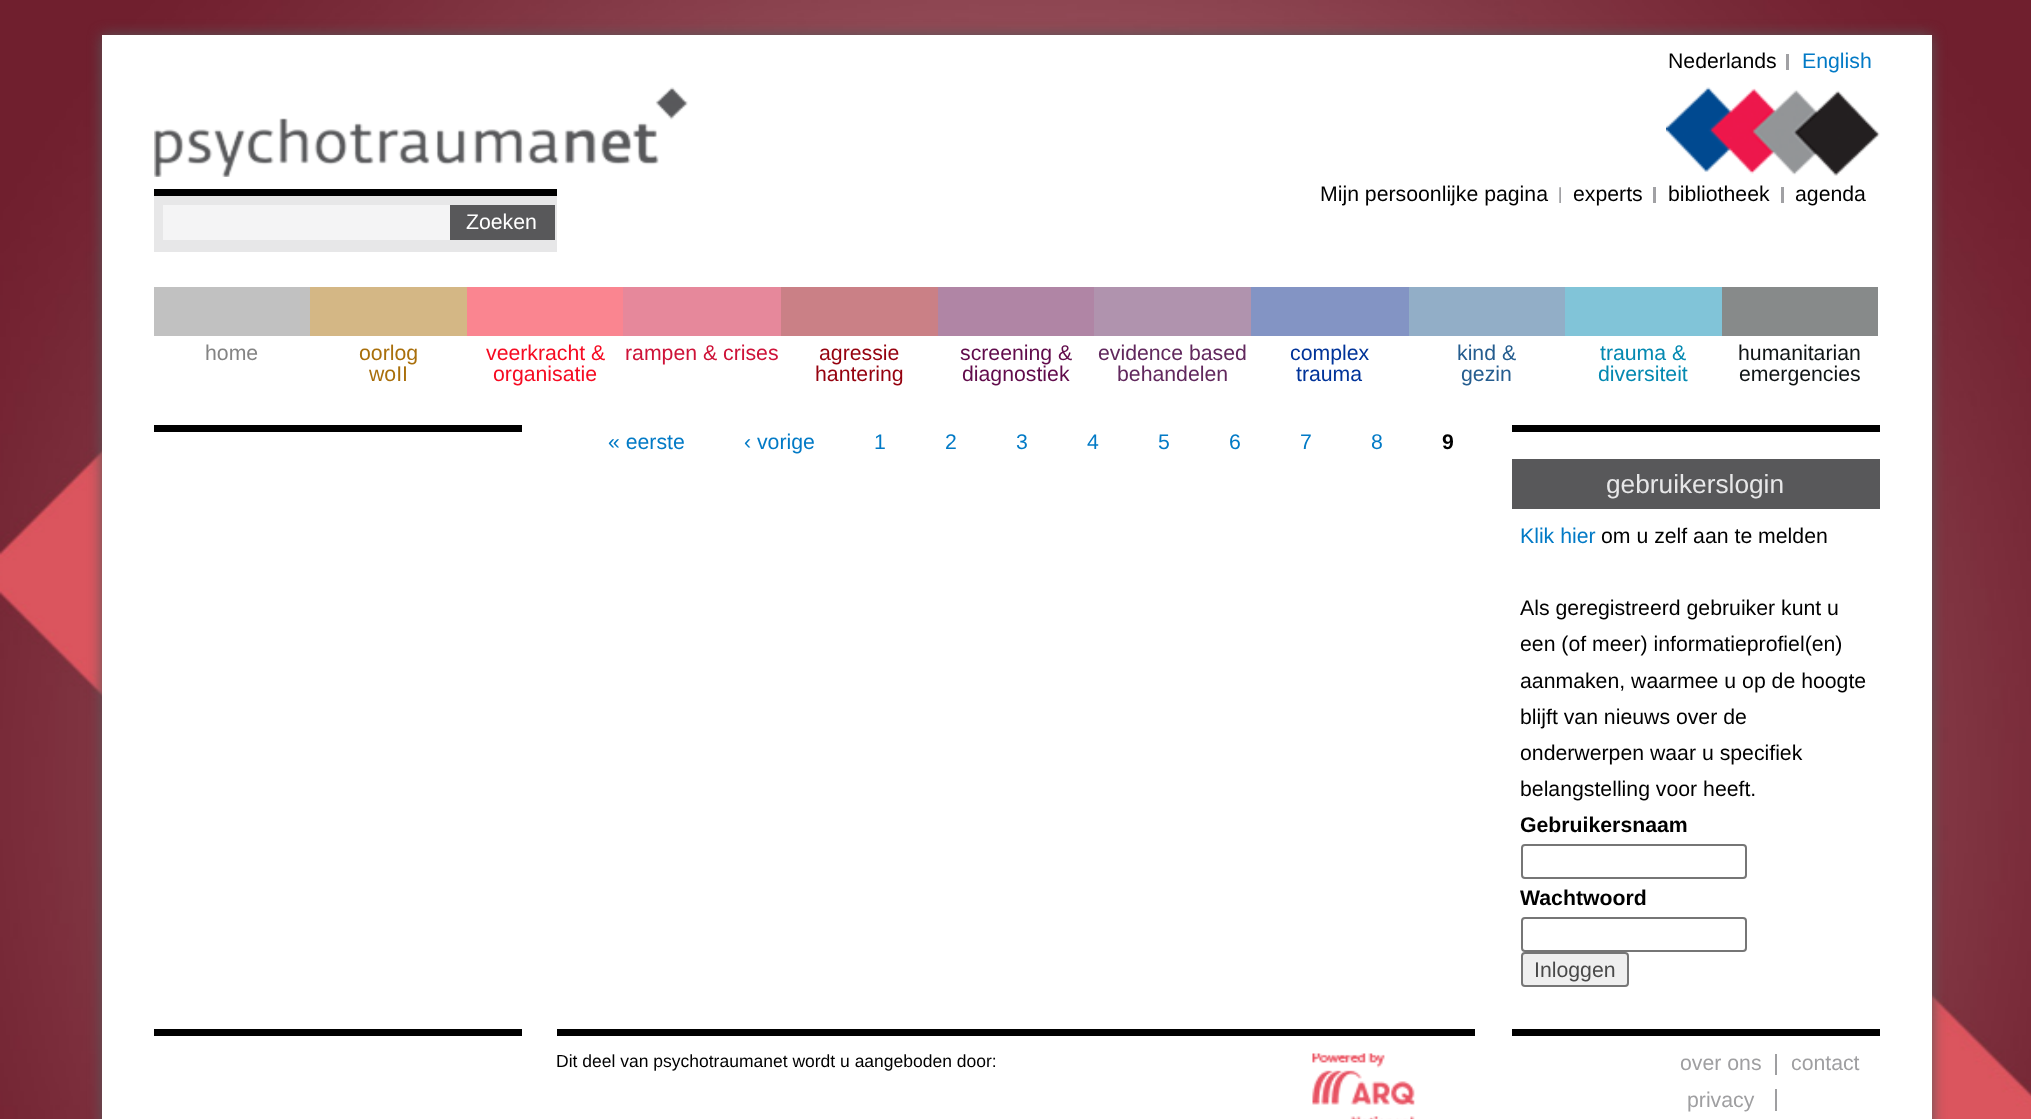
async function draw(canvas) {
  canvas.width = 2031;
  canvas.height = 1119;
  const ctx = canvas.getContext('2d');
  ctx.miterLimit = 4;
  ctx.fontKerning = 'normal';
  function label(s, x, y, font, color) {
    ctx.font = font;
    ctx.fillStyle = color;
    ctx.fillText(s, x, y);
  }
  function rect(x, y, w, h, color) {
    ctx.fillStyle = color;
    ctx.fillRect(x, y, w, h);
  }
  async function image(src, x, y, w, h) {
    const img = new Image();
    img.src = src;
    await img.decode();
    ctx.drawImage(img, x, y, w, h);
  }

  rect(0, 0, 2031, 1119, '#fff');
  await image('assets/img1.png', 0, 0, 2031, 1119);
  ctx.fillStyle = '#58585a';
  ctx.filter = 'blur(7px)';
  ctx.beginPath();
  ctx.rect(102, 35, 1830, 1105);
  ctx.fill();
  ctx.filter = 'none';
  rect(102, 35, 1830, 1084, '#fff');
  rect(1786, 54, 3, 16, '#a1a1a4');
  label('Nederlands', 1668, 68, '21.25px Liberation Sans', '#000');
  label('English', 1802, 68, '21.25px Liberation Sans', '#027ac6');
  await image('assets/img2.png', 1666, 87, 214, 89);
  await image('assets/img3.png', 1559, 187, 2, 16);
  label('Mijn persoonlijke pagina', 1320, 201, '21.25px Liberation Sans', '#000');
  rect(1653, 187, 3, 16, '#a1a1a4');
  label('experts', 1573, 201, '21.25px Liberation Sans', '#000');
  rect(1781, 187, 3, 16, '#a1a1a4');
  label('bibliotheek', 1668, 201, '21.25px Liberation Sans', '#000');
  label('agenda', 1795, 201, '21.25px Liberation Sans', '#000');
  await image('assets/img4.png', 154, 87, 534, 90);
  rect(154, 196, 403, 56, '#e7e7e8');
  rect(154, 189, 403, 7, '#000');
  rect(163, 205, 287, 35, '#f4f4f5');
  rect(450, 205, 105, 35, '#58585a');
  label('Zoeken', 466, 229, '21.25px Liberation Sans', '#fff');
  rect(154, 287, 156, 49, '#c1c1c1');
  label('home', 205, 360, '21.25px Liberation Sans', '#848484');
  rect(310, 287, 157, 49, '#d4b785');
  label('oorlog', 359, 360, '21.25px Liberation Sans', '#a96f0b');
  label('woII', 369, 381, '21.25px Liberation Sans', '#a96f0b');
  rect(467, 287, 156, 49, '#fa8590');
  label('veerkracht &', 486, 360, '21.25px Liberation Sans', '#f60b22');
  label('organisatie', 493, 381, '21.25px Liberation Sans', '#f60b22');
  rect(623, 287, 158, 49, '#e6889b');
  label('rampen & crises', 625, 360, '21.25px Liberation Sans', '#ce1238');
  rect(781, 287, 157, 49, '#ca8086');
  label('agressie', 819, 360, '21.25px Liberation Sans', '#95010e');
  label('hantering', 815, 381, '21.25px Liberation Sans', '#95010e');
  rect(938, 287, 156, 49, '#b085a5');
  label('screening &', 960, 360, '21.25px Liberation Sans', '#610b4b');
  label('diagnostiek', 962, 381, '21.25px Liberation Sans', '#610b4b');
  rect(1094, 287, 157, 49, '#b093ae');
  label('evidence based', 1098, 360, '21.25px Liberation Sans', '#61285d');
  label('behandelen', 1117, 381, '21.25px Liberation Sans', '#61285d');
  rect(1251, 287, 158, 49, '#8394c4');
  label('complex', 1290, 360, '21.25px Liberation Sans', '#039');
  label('trauma', 1296, 381, '21.25px Liberation Sans', '#039');
  rect(1409, 287, 156, 49, '#92aec7');
  label('kind &', 1457, 360, '21.25px Liberation Sans', '#255d8f');
  label('gezin', 1461, 381, '21.25px Liberation Sans', '#255d8f');
  rect(1565, 287, 157, 49, '#81c4d8');
  label('trauma &', 1600, 360, '21.25px Liberation Sans', '#0489b1');
  label('diversiteit', 1598, 381, '21.25px Liberation Sans', '#0489b1');
  rect(1722, 287, 156, 49, '#878a8a');
  label('humanitarian', 1738, 360, '21.25px Liberation Sans', '#101516');
  label('emergencies', 1739, 381, '21.25px Liberation Sans', '#101516');
  rect(154, 425, 368, 7, '#000');
  rect(154, 1029, 368, 7, '#000');
  label('« eerste', 608, 449, '21.25px Liberation Sans', '#027ac6');
  label('‹ vorige', 744, 449, '21.25px Liberation Sans', '#027ac6');
  label('1', 874, 449, '21.25px Liberation Sans', '#027ac6');
  label('2', 945, 449, '21.25px Liberation Sans', '#027ac6');
  label('3', 1016, 449, '21.25px Liberation Sans', '#027ac6');
  label('4', 1087, 449, '21.25px Liberation Sans', '#027ac6');
  label('5', 1158, 449, '21.25px Liberation Sans', '#027ac6');
  label('6', 1229, 449, '21.25px Liberation Sans', '#027ac6');
  label('7', 1300, 449, '21.25px Liberation Sans', '#027ac6');
  label('8', 1371, 449, '21.25px Liberation Sans', '#027ac6');
  label('9', 1442, 449, 'bold 21.25px Liberation Sans', '#000');
  rect(1512, 425, 368, 7, '#000');
  rect(1512, 1029, 368, 7, '#000');
  rect(1512, 459, 368, 50, '#58585a');
  label('gebruikerslogin', 1606, 493, '26.25px Liberation Sans', '#e7e7e8');
  label('Klik hier', 1520, 543, '21.25px Liberation Sans', '#027ac6');
  label('om u zelf aan te melden', 1601, 543, '21.25px Liberation Sans', '#000');
  label('Als geregistreerd gebruiker kunt u', 1520, 615, '21.25px Liberation Sans', '#000');
  label('een (of meer) informatieprofiel(en)', 1520, 651, '21.25px Liberation Sans', '#000');
  label('aanmaken, waarmee u op de hoogte', 1520, 688, '21.25px Liberation Sans', '#000');
  label('blijft van nieuws over de', 1520, 724, '21.25px Liberation Sans', '#000');
  label('onderwerpen waar u specifiek', 1520, 760, '21.25px Liberation Sans', '#000');
  label('belangstelling voor heeft.', 1520, 796, '21.25px Liberation Sans', '#000');
  label('Gebruikersnaam', 1520, 832, 'bold 21.25px Liberation Sans', '#000');
  ctx.beginPath();
  ctx.roundRect(1522, 845, 224, 33, 3);
  ctx.strokeStyle = '#767676';
  ctx.lineWidth = 2;
  ctx.stroke();
  label('Wachtwoord', 1520, 905, 'bold 21.25px Liberation Sans', '#000');
  ctx.beginPath();
  ctx.roundRect(1522, 918, 224, 33, 3);
  ctx.stroke();
  ctx.fillStyle = '#efefef';
  ctx.beginPath();
  ctx.roundRect(1522, 953, 106, 33, 3);
  ctx.fill();
  ctx.stroke();
  label('Inloggen', 1534, 977, '21.25px Liberation Sans', '#494949');
  rect(557, 1029, 918, 7, '#000');
  label('Dit deel van psychotraumanet wordt u aangeboden door:', 556, 1067, '17.5px Liberation Sans', '#000');
  await image('assets/img5.png', 1312, 1053, 103, 66);
  rect(1775, 1054, 2, 21, '#9f9fa1');
  label('over ons', 1680, 1070, '21.25px Liberation Sans', '#9f9fa1');
  label('contact', 1791, 1070, '21.25px Liberation Sans', '#9f9fa1');
  rect(1775, 1089, 2, 22, '#9f9fa1');
  label('privacy', 1687, 1107, '21.25px Liberation Sans', '#9f9fa1');
}

draw(document.querySelector('canvas'));
